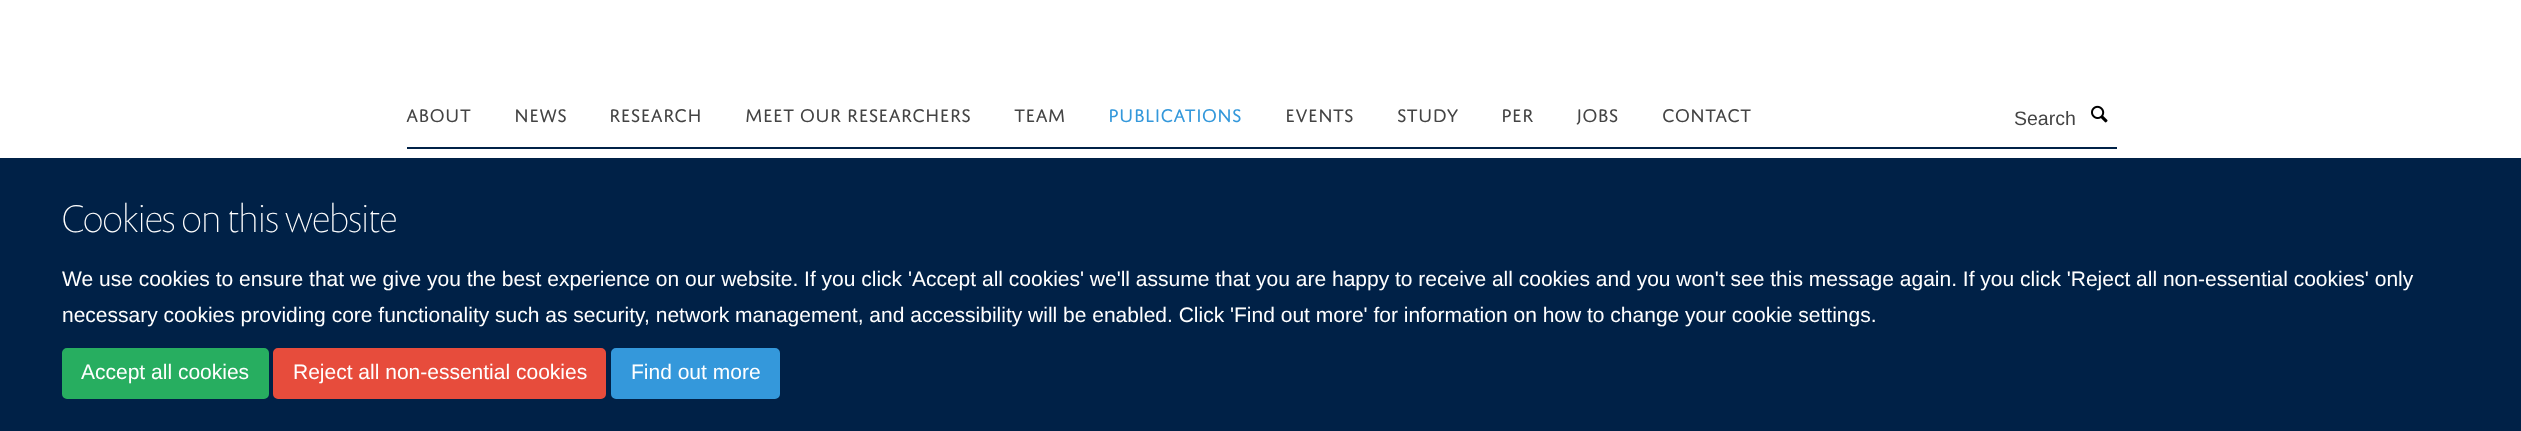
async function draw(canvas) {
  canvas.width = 2521;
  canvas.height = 431;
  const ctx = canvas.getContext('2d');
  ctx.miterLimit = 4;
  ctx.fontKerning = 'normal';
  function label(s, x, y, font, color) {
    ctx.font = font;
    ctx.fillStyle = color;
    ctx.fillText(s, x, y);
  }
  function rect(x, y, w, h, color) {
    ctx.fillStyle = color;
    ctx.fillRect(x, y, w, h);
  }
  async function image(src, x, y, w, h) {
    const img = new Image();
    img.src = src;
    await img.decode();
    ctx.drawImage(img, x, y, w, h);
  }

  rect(0, 0, 2521, 431, '#fff');
  rect(407, 147, 1710, 2, '#002147');
  label('ABOUT', 406, 122, '19.5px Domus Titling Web', '#444');
  label('NEWS', 514, 122, '19.5px Domus Titling Web', '#444');
  label('RESEARCH', 609, 122, '19.5px Domus Titling Web', '#444');
  label('MEET OUR RESEARCHERS', 745, 122, '19.5px Domus Titling Web', '#444');
  label('TEAM', 1014, 122, '19.5px Domus Titling Web', '#444');
  label('PUBLICATIONS', 1108, 122, '19.5px Domus Titling Web', '#3498db');
  label('EVENTS', 1285, 122, '19.5px Domus Titling Web', '#444');
  label('STUDY', 1397, 122, '19.5px Domus Titling Web', '#444');
  label('PER', 1501, 122, '19.5px Domus Titling Web', '#444');
  label('JOBS', 1576, 122, '19.5px Domus Titling Web', '#444');
  label('CONTACT', 1662, 122, '19.5px Domus Titling Web', '#444');
  label('Search', 2014, 125, '19.5px Liberation Sans', '#444');
  await image('assets/img1.png', 2091, 105, 17, 18);
  rect(0, 158, 2521, 273, '#002147');
  label('Cookies on this website', 62, 232, '100 39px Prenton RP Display', '#fff');
  label('We use cookies to ensure that we give you the best experience on our website. If you click \'Accept all cookies\' we\'ll assume that you are happy to receive all cookies and you won\'t see this message again. If you click \'Reject all non-essential cookies\' only', 62, 286, '21px Liberation Sans', '#fff');
  label('necessary cookies providing core functionality such as security, network management, and accessibility will be enabled. Click \'Find out more\' for information on how to change your cookie settings.', 62, 322, '21px Liberation Sans', '#fff');
  ctx.fillStyle = '#27ae60';
  ctx.beginPath();
  ctx.roundRect(63, 349, 205, 49, 4);
  ctx.fill();
  ctx.strokeStyle = '#27ae60';
  ctx.lineWidth = 2;
  ctx.stroke();
  label('Accept all cookies', 81, 379, '21px Liberation Sans', '#fff');
  ctx.fillStyle = '#e74c3c';
  ctx.beginPath();
  ctx.roundRect(274, 349, 331, 49, 4);
  ctx.fill();
  ctx.strokeStyle = '#e74c3c';
  ctx.stroke();
  label('Reject all non-essential cookies', 293, 379, '21px Liberation Sans', '#fff');
  ctx.fillStyle = '#3498db';
  ctx.beginPath();
  ctx.roundRect(612, 349, 167, 49, 4);
  ctx.fill();
  ctx.strokeStyle = '#3498db';
  ctx.stroke();
  label('Find out more', 631, 379, '21px Liberation Sans', '#fff');
}

draw(document.querySelector('canvas'));
